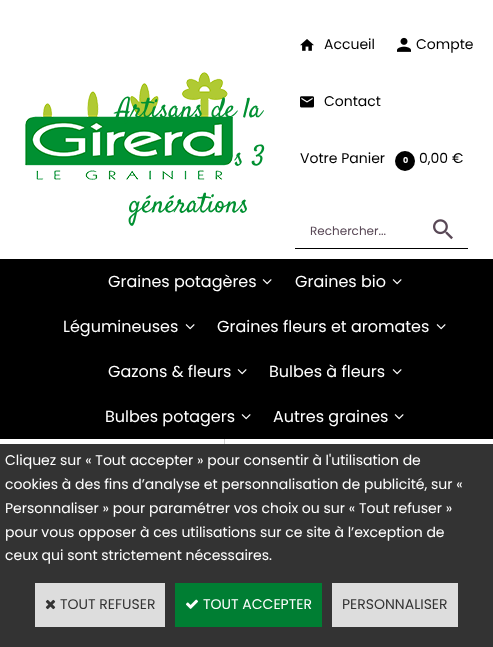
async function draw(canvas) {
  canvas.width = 493;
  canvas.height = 647;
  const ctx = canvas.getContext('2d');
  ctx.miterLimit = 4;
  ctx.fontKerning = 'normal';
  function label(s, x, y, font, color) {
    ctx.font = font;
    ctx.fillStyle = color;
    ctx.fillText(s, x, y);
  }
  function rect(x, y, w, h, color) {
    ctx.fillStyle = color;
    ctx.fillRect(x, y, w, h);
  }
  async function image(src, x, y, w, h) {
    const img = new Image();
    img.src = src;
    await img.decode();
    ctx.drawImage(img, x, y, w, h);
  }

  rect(0, 0, 493, 647, '#fff');
  await image('assets/img1.png', 25, 72, 208, 108);
  await image('assets/img2.png', 300, 39, 14, 12);
  label('Accueil', 324, 49, '14px Poppins', '#000');
  await image('assets/img3.png', 397, 37, 14, 15);
  label('Compte', 416, 49, '14px Poppins', '#000');
  await image('assets/img4.png', 300, 96, 14, 12);
  label('Contact', 324, 106, '14px Poppins', '#000');
  label('Votre Panier', 300, 163, '14px Poppins', '#000');
  ctx.beginPath();
  ctx.arc(405, 161, 10, 0, 2 * Math.PI);
  ctx.fill();
  label('0', 403, 163, 'bold 8px Poppins', '#fff');
  label('0,00 €', 419, 163, '14px Poppins', '#000');
  rect(295, 248, 173, 1, '#000');
  label('Rechercher...', 310, 235, '12px Poppins', '#594856');
  await image('assets/img5.png', 433, 219, 20, 21);
  label('Artisans de la', 116, 117, '28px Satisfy', '#009031');
  label('s 3', 234, 165, '28px Satisfy', '#009031');
  label('générations', 129, 212, '28px Satisfy', '#009031');
  rect(0, 259, 493, 180, '#000');
  label('Graines potagères', 108, 287, '16px Poppins', '#fff');
  await image('assets/img6.png', 262, 279, 10, 6);
  label('Graines bio', 295, 287, '16px Poppins', '#fff');
  await image('assets/img6.png', 392, 279, 10, 6);
  label('Légumineuses', 63, 332, '16px Poppins', '#fff');
  await image('assets/img6.png', 185, 324, 10, 6);
  label('Graines fleurs et aromates', 217, 332, '16px Poppins', '#fff');
  await image('assets/img6.png', 436, 324, 10, 6);
  label('Gazons & fleurs', 108, 377, '16px Poppins', '#fff');
  await image('assets/img6.png', 237, 369, 10, 6);
  label('Bulbes à fleurs', 269, 377, '16px Poppins', '#fff');
  await image('assets/img6.png', 392, 369, 10, 6);
  label('Bulbes potagers', 105, 422, '16px Poppins', '#fff');
  await image('assets/img6.png', 241, 414, 10, 6);
  label('Autres graines', 273, 422, '16px Poppins', '#fff');
  await image('assets/img6.png', 394, 414, 10, 6);
  rect(224, 439, 1, 5, '#d0d0d0');
  rect(0, 444, 493, 203, '#333');
  label('Cliquez sur « Tout accepter » pour consentir à l\'utilisation de', 5, 465, '14px Poppins', '#fff');
  label('cookies à des fins d’analyse et personnalisation de publicité, sur «', 5, 489, '14px Poppins', '#fff');
  label('Personnaliser » pour paramétrer vos choix ou sur « Tout refuser »', 5, 513, '14px Poppins', '#fff');
  label('pour vous opposer à ces utilisations sur ce site à l’exception de', 5, 537, '14px Poppins', '#fff');
  label('ceux qui sont strictement nécessaires.', 5, 560, '14px Poppins', '#fff');
  rect(35, 583, 130, 44, '#ddd');
  await image('assets/img7.png', 45, 599, 11, 11);
  label('TOUT REFUSER', 60, 609, '14px Poppins', '#333');
  rect(175, 583, 147, 44, '#007e33');
  await image('assets/img8.png', 186, 599, 12, 10);
  label('TOUT ACCEPTER', 203, 609, '14px Poppins', '#fff');
  rect(332, 583, 126, 44, '#ddd');
  label('PERSONNALISER', 342, 609, '14px Poppins', '#333');
}

draw(document.querySelector('canvas'));
